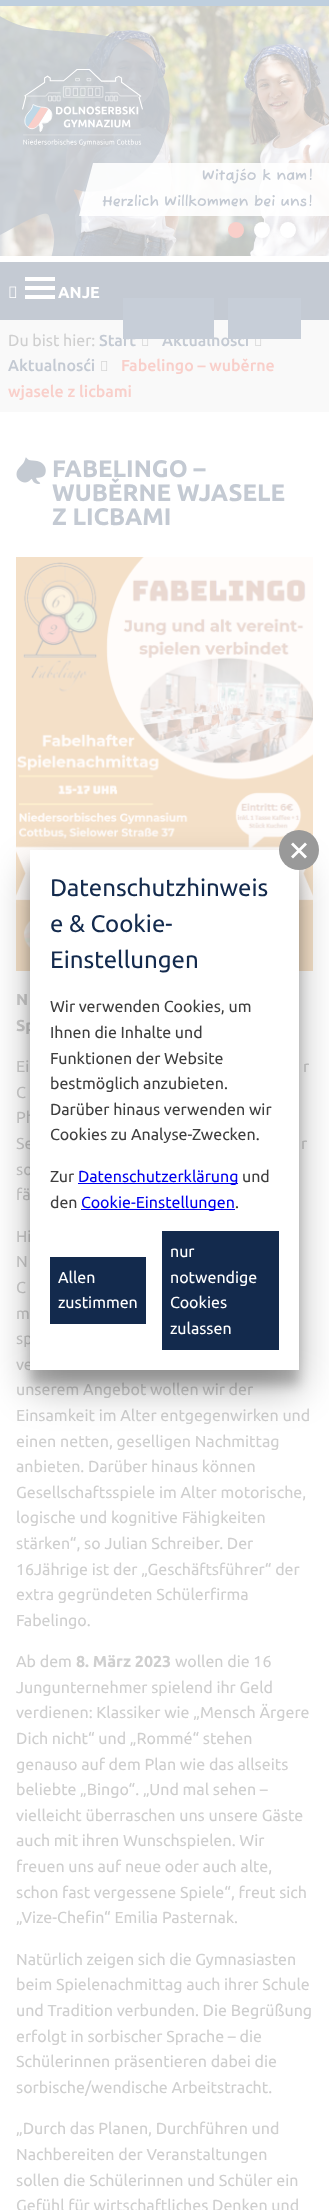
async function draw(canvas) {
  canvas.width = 329;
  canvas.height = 2210;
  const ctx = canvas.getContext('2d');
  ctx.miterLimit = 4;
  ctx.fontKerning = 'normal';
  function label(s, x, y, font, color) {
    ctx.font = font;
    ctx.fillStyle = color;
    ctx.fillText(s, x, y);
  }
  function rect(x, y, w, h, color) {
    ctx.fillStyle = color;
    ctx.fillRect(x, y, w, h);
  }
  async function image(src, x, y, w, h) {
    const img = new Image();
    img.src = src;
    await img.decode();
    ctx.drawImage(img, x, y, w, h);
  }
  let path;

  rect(0, 0, 329, 2210, '#fff');
  await image('assets/img3.png', 0, 6, 329, 250);
  await image('assets/img2.png', 0, 16, 170, 240);
  await image('assets/img1.png', 22, 69, 121, 77);
  rect(0, 0, 329, 6, '#bfcfde');
  ctx.fillStyle = '#ffffffe6';
  path = new Path2D('M93 163H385L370 216H79Z');
  ctx.fill(path);
  label('Witajśo k nam!', 202, 180, 'bold 14.4px Fuzzy Bubbles', '#c4cad3');
  label('Herzlich Willkommen bei uns!', 102, 206, 'bold 14.4px Fuzzy Bubbles', '#c4cad3');
  ctx.fillStyle = '#f9cfca';
  ctx.beginPath();
  ctx.arc(236, 230, 8, 0, 2 * Math.PI);
  ctx.fill();
  ctx.fillStyle = '#bfbfbf33';
  ctx.filter = 'blur(2.5px)';
  ctx.beginPath();
  ctx.roundRect(254, 222, 16, 16, 8);
  ctx.fill();
  ctx.filter = 'none';
  ctx.fillStyle = '#fff';
  ctx.beginPath();
  ctx.arc(262, 230, 8, 0, 2 * Math.PI);
  ctx.fill();
  ctx.fillStyle = '#bfbfbf33';
  ctx.filter = 'blur(2.5px)';
  ctx.beginPath();
  ctx.roundRect(280, 222, 16, 16, 8);
  ctx.fill();
  ctx.filter = 'none';
  ctx.fillStyle = '#fff';
  ctx.beginPath();
  ctx.arc(288, 230, 8, 0, 2 * Math.PI);
  ctx.fill();
  rect(0, 262, 329, 58, '#c4cad3');
  rect(25, 277, 30, 4, '#fff');
  rect(25, 286, 30, 4, '#fff');
  rect(25, 295, 30, 4, '#fff');
  await image('assets/img4.png', 9, 286, 8, 12);
  label('ANJE', 58, 298, 'bold 16px Ubuntu', '#fff');
  rect(0, 320, 329, 92, '#f9f9f9');
  label('Start', 99, 346, '500 16px Ubuntu', '#c4cad3');
  label('Aktualnosći', 162, 346, '500 16px Ubuntu', '#c4cad3');
  rect(123, 298, 91, 41, '#c7ced8');
  rect(228, 298, 73, 41, '#c7ced8');
  label('Du bist hier:', 8, 346, '16px Ubuntu', '#cfcfcf');
  await image('assets/img5.png', 142, 339, 7, 7);
  await image('assets/img5.png', 255, 339, 7, 7);
  label('Aktualnosći', 8, 371, '500 16px Ubuntu', '#c4cad3');
  await image('assets/img6.png', 101, 361, 7, 10);
  label('Fabelingo – wuběrne', 121, 371, '500 16px Ubuntu', '#f9cfca');
  label('wjasele z licbami', 8, 397, '500 16px Ubuntu', '#f9cfca');
  await image('assets/img7.png', 16, 457, 30, 27);
  label('FABELINGO –', 52, 477, 'bold 24px Ubuntu', '#c4cad3');
  label('WUBĚRNE WJASELE', 52, 501, 'bold 24px Ubuntu', '#c4cad3');
  label('Z LICBAMI', 52, 525, 'bold 24px Ubuntu', '#c4cad3');
  await image('assets/img8.png', 16, 557, 297, 414);
  label('N', 16, 1005, 'bold 16px Ubuntu', '#cfcfcf');
  label('Sp', 16, 1031, 'bold 16px Ubuntu', '#cfcfcf');
  label('Ei', 16, 1072, '16px Ubuntu', '#cfcfcf');
  label('r', 303, 1072, '16px Ubuntu', '#cfcfcf');
  label('C', 16, 1098, '16px Ubuntu', '#cfcfcf');
  label('Ph', 16, 1123, '16px Ubuntu', '#cfcfcf');
  label('Se', 16, 1149, '16px Ubuntu', '#cfcfcf');
  label('r', 301, 1149, '16px Ubuntu', '#cfcfcf');
  label('so', 16, 1175, '16px Ubuntu', '#cfcfcf');
  label('fä', 16, 1200, '16px Ubuntu', '#cfcfcf');
  label('Hi', 16, 1242, '16px Ubuntu', '#cfcfcf');
  label('N', 16, 1267, '16px Ubuntu', '#cfcfcf');
  label('C', 16, 1293, '16px Ubuntu', '#cfcfcf');
  label('m', 16, 1319, '16px Ubuntu', '#cfcfcf');
  label('sp', 16, 1344, '16px Ubuntu', '#cfcfcf');
  label('ve', 16, 1370, '16px Ubuntu', '#cfcfcf');
  label('unserem Angebot wollen wir der', 16, 1395, '16px Ubuntu', '#cfcfcf');
  label('Einsamkeit im Alter entgegenwirken und', 16, 1421, '16px Ubuntu', '#cfcfcf');
  label('einen netten, geselligen Nachmittag', 16, 1447, '16px Ubuntu', '#cfcfcf');
  label('anbieten. Darüber hinaus können', 16, 1472, '16px Ubuntu', '#cfcfcf');
  label('Gesellschaftsspiele im Alter motorische,', 16, 1498, '16px Ubuntu', '#cfcfcf');
  label('logische und kognitive Fähigkeiten', 16, 1523, '16px Ubuntu', '#cfcfcf');
  label('stärken“, so Julian Schreiber. Der', 16, 1549, '16px Ubuntu', '#cfcfcf');
  label('16Jährige ist der „Geschäftsführer“ der', 16, 1575, '16px Ubuntu', '#cfcfcf');
  label('extra gegründeten Schülerfirma', 16, 1600, '16px Ubuntu', '#cfcfcf');
  label('Fabelingo.', 16, 1626, '16px Ubuntu', '#cfcfcf');
  label('Ab dem', 16, 1667, '16px Ubuntu', '#cfcfcf');
  label('8. März 2023', 76, 1667, 'bold 16px Ubuntu', '#cfcfcf');
  label('wollen die 16', 175, 1667, '16px Ubuntu', '#cfcfcf');
  label('Jungunternehmer spielend ihr Geld', 16, 1693, '16px Ubuntu', '#cfcfcf');
  label('verdienen: Klassiker wie „Mensch Ärgere', 16, 1718, '16px Ubuntu', '#cfcfcf');
  label('Dich nicht“ und „Rommé“ stehen', 16, 1744, '16px Ubuntu', '#cfcfcf');
  label('genauso auf dem Plan wie das allseits', 16, 1770, '16px Ubuntu', '#cfcfcf');
  label('beliebte „Bingo“. „Und mal sehen –', 16, 1795, '16px Ubuntu', '#cfcfcf');
  label('vielleicht überraschen uns unsere Gäste', 16, 1821, '16px Ubuntu', '#cfcfcf');
  label('auch mit ihren Wunschspielen. Wir', 16, 1846, '16px Ubuntu', '#cfcfcf');
  label('freuen uns auf neue oder auch alte,', 16, 1872, '16px Ubuntu', '#cfcfcf');
  label('schon fast vergessene Spiele“, freut sich', 16, 1898, '16px Ubuntu', '#cfcfcf');
  label('„Vize-Chefin“ Emilia Pasternak.', 16, 1923, '16px Ubuntu', '#cfcfcf');
  label('Natürlich zeigen sich die Gymnasiasten', 16, 1965, '16px Ubuntu', '#cfcfcf');
  label('beim Spielenachmittag auch ihrer Schule', 16, 1990, '16px Ubuntu', '#cfcfcf');
  label('und Tradition verbunden. Die Begrüßung', 16, 2016, '16px Ubuntu', '#cfcfcf');
  label('erfolgt in sorbischer Sprache – die', 16, 2042, '16px Ubuntu', '#cfcfcf');
  label('Schülerinnen präsentieren dabei die', 16, 2067, '16px Ubuntu', '#cfcfcf');
  label('sorbische/wendische Arbeitstracht.', 16, 2093, '16px Ubuntu', '#cfcfcf');
  label('„Durch das Planen, Durchführen und', 16, 2134, '16px Ubuntu', '#cfcfcf');
  label('Nachbereiten der Veranstaltungen', 16, 2160, '16px Ubuntu', '#cfcfcf');
  label('sollen die Schülerinnen und Schüler ein', 16, 2186, '16px Ubuntu', '#cfcfcf');
  label('Gefühl für wirtschaftliches Denken und', 16, 2211, '16px Ubuntu', '#cfcfcf');
  ctx.fillStyle = '#00000038';
  ctx.filter = 'blur(6px)';
  ctx.beginPath();
  ctx.rect(30, 865, 269, 520);
  ctx.fill();
  ctx.filter = 'none';
  ctx.fillStyle = '#0000004d';
  ctx.filter = 'blur(19px)';
  ctx.beginPath();
  ctx.rect(30, 869, 269, 520);
  ctx.fill();
  ctx.filter = 'none';
  rect(30, 850, 269, 520, '#fff');
  ctx.fillStyle = '#999';
  ctx.beginPath();
  ctx.arc(299, 850, 20, 0, 2 * Math.PI);
  ctx.fill();
  ctx.fillStyle = '#fff';
  path = new Path2D('M293 842.5L307 856.5L305 858.5L291 844.5Z');
  ctx.fill(path);
  path = new Path2D('M291 856.5L305 842.5L307 844.5L293 858.5Z');
  ctx.fill(path);
  label('Datenschutzhinweis', 50, 896, '24px Ubuntu', '#132a4d');
  label('e & Cookie-', 50, 932, '24px Ubuntu', '#132a4d');
  label('Einstellungen', 50, 968, '24px Ubuntu', '#132a4d');
  label('Wir verwenden Cookies, um', 50, 1012, '16px Ubuntu', '#3f3f3f');
  label('Ihnen die Inhalte und', 50, 1038, '16px Ubuntu', '#3f3f3f');
  label('Funktionen der Website', 50, 1064, '16px Ubuntu', '#3f3f3f');
  label('bestmöglich anzubieten.', 50, 1089, '16px Ubuntu', '#3f3f3f');
  label('Darüber hinaus verwenden wir', 50, 1115, '16px Ubuntu', '#3f3f3f');
  label('Cookies zu Analyse-Zwecken.', 50, 1140, '16px Ubuntu', '#3f3f3f');
  label('Zur', 50, 1182, '16px Ubuntu', '#3f3f3f');
  rect(78, 1183, 160, 1, '#00e');
  label('Datenschutzerklärung', 78, 1182, '16px Ubuntu', '#00e');
  label('und', 242, 1182, '16px Ubuntu', '#3f3f3f');
  label('den', 50, 1208, '16px Ubuntu', '#3f3f3f');
  rect(81, 1209, 154, 1, '#00e');
  label('Cookie-Einstellungen', 81, 1208, '16px Ubuntu', '#00e');
  label('.', 235, 1208, '16px Ubuntu', '#3f3f3f');
  rect(50, 1257, 96, 67, '#132a4d');
  label('Allen', 58, 1283, '16px Ubuntu', '#fff');
  label('zustimmen', 58, 1308, '16px Ubuntu', '#fff');
  rect(162, 1231, 117, 119, '#132a4d');
  label('nur', 170, 1257, '16px Ubuntu', '#fff');
  label('notwendige', 170, 1283, '16px Ubuntu', '#fff');
  label('Cookies', 170, 1308, '16px Ubuntu', '#fff');
  label('zulassen', 170, 1334, '16px Ubuntu', '#fff');
}

draw(document.querySelector('canvas'));
